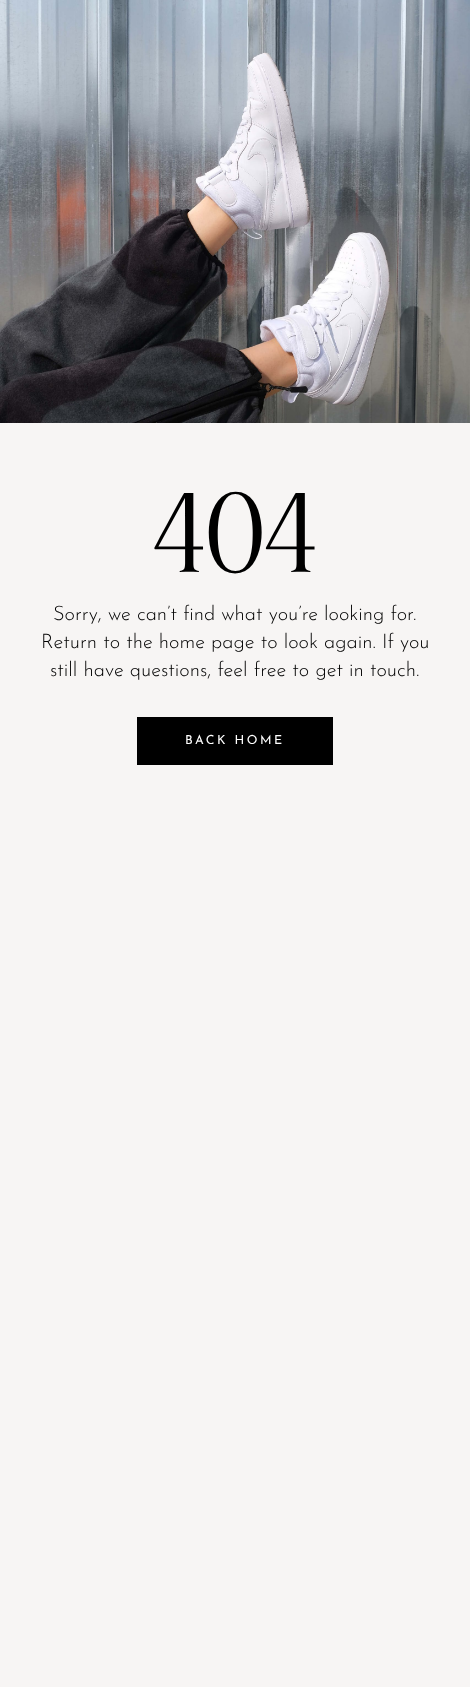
async function draw(canvas) {
  canvas.width = 470;
  canvas.height = 1687;
  const ctx = canvas.getContext('2d');
  ctx.miterLimit = 4;
  ctx.fontKerning = 'normal';
  function label(s, x, y, font, color) {
    ctx.font = font;
    ctx.fillStyle = color;
    ctx.fillText(s, x, y);
  }
  function rect(x, y, w, h, color) {
    ctx.fillStyle = color;
    ctx.fillRect(x, y, w, h);
  }
  async function image(src, x, y, w, h) {
    const img = new Image();
    img.src = src;
    await img.decode();
    ctx.drawImage(img, x, y, w, h);
  }

  rect(0, 0, 470, 1687, '#f7f5f4');
  await image('assets/img1.png', 0, 0, 470, 423);
  label('404', 153, 572, '115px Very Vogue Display', '#000');
  label('Sorry, we can’t find what you’re looking for.', 53, 620, '300 20px Josefin Sans', '#000');
  label('Return to the home page to look again. If you', 41, 648, '300 20px Josefin Sans', '#000');
  label('still have questions, feel free to get in touch.', 50, 676, '300 20px Josefin Sans', '#000');
  rect(137, 717, 196, 48, '#000');
  ctx.letterSpacing = '2.5px';
  label('BACK HOME', 185, 744, '12.5px Josefin Sans', '#fff');
}

draw(document.querySelector('canvas'));
